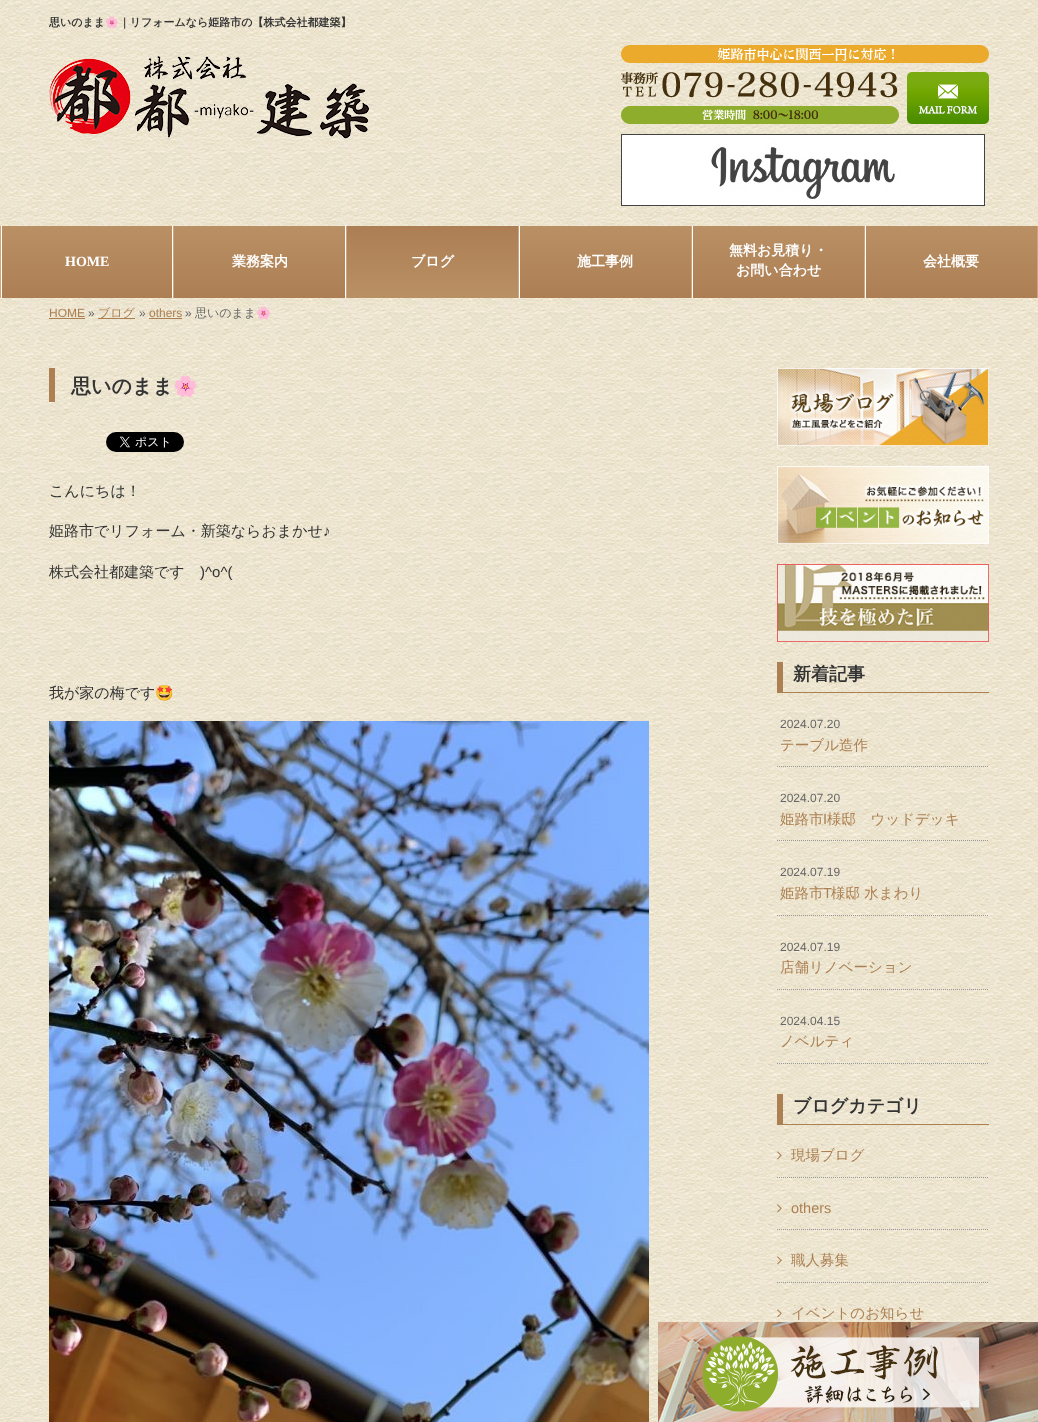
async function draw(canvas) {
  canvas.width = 1038;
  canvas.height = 1422;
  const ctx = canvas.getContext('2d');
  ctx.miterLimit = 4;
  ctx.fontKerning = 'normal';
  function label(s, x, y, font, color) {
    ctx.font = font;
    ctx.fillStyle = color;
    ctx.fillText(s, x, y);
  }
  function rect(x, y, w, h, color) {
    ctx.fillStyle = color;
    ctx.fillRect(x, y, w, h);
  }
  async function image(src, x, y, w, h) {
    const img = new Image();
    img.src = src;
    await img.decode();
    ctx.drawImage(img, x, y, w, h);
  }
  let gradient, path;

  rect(0, 0, 1038, 1422, '#fff');
  await image('assets/img1.png', 0, 0, 1038, 1422);
  label('思いのまま', 49, 26, 'bold 11px WenQuanYi Zen Hei', '#333');
  label('🌸', 105, 26, 'bold 11px Noto Color Emoji', '#333');
  label('｜リフォームなら姫路市の【株式会社都建築】', 119, 26, 'bold 11px WenQuanYi Zen Hei', '#333');
  await image('assets/img2.png', 49, 56, 320, 83);
  await image('assets/img3.png', 621, 45, 368, 79);
  await image('assets/img4.png', 621, 134, 364, 72);
  rect(1, 226, 865, 72, '#fff');
  gradient = ctx.createLinearGradient(87, 226, 87, 298);
  gradient.addColorStop(0, '#b99064');
  gradient.addColorStop(1, '#ad7e54');
  ctx.fillStyle = gradient;
  ctx.fillRect(2, 226, 170, 72);
  rect(0, 226, 1, 72, '#cea47a');
  label('HOME', 65, 266, 'bold 14px Liberation Serif', '#fff');
  rect(173, 226, 1, 72, '#cea47a');
  gradient = ctx.createLinearGradient(260, 226, 260, 298);
  gradient.addColorStop(0, '#b99064');
  gradient.addColorStop(1, '#ad7e54');
  ctx.fillStyle = gradient;
  ctx.fillRect(174, 226, 171, 72);
  label('業務案内', 232, 266, 'bold 14px WenQuanYi Zen Hei', '#fff');
  rect(346, 226, 1, 72, '#cea47a');
  gradient = ctx.createLinearGradient(433, 226, 433, 298);
  gradient.addColorStop(0, '#ad7e54');
  gradient.addColorStop(1, '#b99064');
  ctx.fillStyle = gradient;
  ctx.fillRect(347, 226, 171, 72);
  label('ブログ', 411, 266, 'bold 14px WenQuanYi Zen Hei', '#fff');
  rect(518, 226, 1, 72, '#cea47a');
  gradient = ctx.createLinearGradient(606, 226, 606, 298);
  gradient.addColorStop(0, '#b99064');
  gradient.addColorStop(1, '#ad7e54');
  ctx.fillStyle = gradient;
  ctx.fillRect(520, 226, 171, 72);
  label('施工事例', 577, 266, 'bold 14px WenQuanYi Zen Hei', '#fff');
  gradient = ctx.createLinearGradient(779, 226, 779, 298);
  gradient.addColorStop(0, '#b99064');
  gradient.addColorStop(1, '#ad7e54');
  ctx.fillStyle = gradient;
  ctx.fillRect(693, 226, 171, 72);
  rect(691, 226, 1, 72, '#cea47a');
  label('無料お見積り・', 729, 255, 'bold 14px WenQuanYi Zen Hei', '#fff');
  label('お問い合わせ', 736, 275, 'bold 14px WenQuanYi Zen Hei', '#fff');
  gradient = ctx.createLinearGradient(952, 226, 952, 298);
  gradient.addColorStop(0, '#b99064');
  gradient.addColorStop(1, '#ad7e54');
  ctx.fillStyle = gradient;
  ctx.fillRect(866, 226, 171, 72);
  rect(1037, 226, 1, 72, '#cea47a');
  rect(864, 226, 1, 72, '#cea47a');
  label('会社概要', 923, 266, 'bold 14px WenQuanYi Zen Hei', '#fff');
  label('HOME', 49, 317, '12px Liberation Sans', '#ac8053');
  rect(49, 318, 36, 1, '#ac8053');
  label('»', 88, 317, '12px Liberation Sans', '#666');
  rect(98, 318, 37, 1, '#ac8053');
  label('ブログ', 98, 317, '500 12px WenQuanYi Zen Hei', '#ac8053');
  label('»', 139, 317, '12px Liberation Sans', '#666');
  label('others', 149, 317, '12px Liberation Sans', '#ac8053');
  rect(149, 318, 33, 1, '#ac8053');
  label('»', 185, 317, '12px Liberation Sans', '#666');
  label('思いのまま', 195, 317, '500 12px WenQuanYi Zen Hei', '#666');
  label('🌸', 256, 317, '12px Noto Color Emoji', '#666');
  rect(49, 368, 6, 34, '#ac8053');
  label('思いのまま', 71, 393, 'bold 20px WenQuanYi Zen Hei', '#333');
  label('🌸', 173, 393, 'bold 20px Noto Color Emoji', '#333');
  await image('assets/img5.png', 106, 432, 78, 20);
  label('こんにちは！', 49, 496, '500 15px WenQuanYi Zen Hei', '#333');
  label('姫路市でリフォーム・新築ならおまかせ', 49, 536, '500 15px WenQuanYi Zen Hei', '#333');
  label('♪', 323, 536, '15px Liberation Sans', '#333');
  label('株式会社都建築です', 49, 577, '500 15px WenQuanYi Zen Hei', '#333');
  label(')^o^(', 200, 577, '15px Liberation Sans', '#333');
  label('我が家の梅です', 49, 698, '500 15px WenQuanYi Zen Hei', '#333');
  label('🤩', 155, 698, '15px Noto Color Emoji', '#333');
  await image('assets/img6.png', 49, 721, 600, 701);
  await image('assets/img7.png', 777, 368, 212, 78);
  await image('assets/img8.png', 777, 466, 212, 78);
  await image('assets/img9.png', 777, 564, 212, 78);
  rect(777, 692, 212, 1, '#ac8053');
  rect(777, 662, 6, 31, '#ac8053');
  label('新着記事', 793, 680, 'bold 18px WenQuanYi Zen Hei', '#333');
  path = new Path2D('M777 766.5H989');
  ctx.strokeStyle = '#999';
  ctx.setLineDash([1, 1]);
  ctx.stroke(path);
  label('2024.07.20', 780, 728, '12px Liberation Sans', '#666');
  label('テーブル造作', 780, 750, '500 14.5px WenQuanYi Zen Hei', '#ac8053');
  path = new Path2D('M777 840.5H989');
  ctx.stroke(path);
  label('2024.07.20', 780, 802, '12px Liberation Sans', '#666');
  label('姫路市', 780, 824, '500 14.5px WenQuanYi Zen Hei', '#ac8053');
  label('I', 823, 824, '14.5px Liberation Sans', '#ac8053');
  label('様邸　ウッドデッキ', 827, 824, '500 14.5px WenQuanYi Zen Hei', '#ac8053');
  path = new Path2D('M777 915.5H989');
  ctx.stroke(path);
  label('2024.07.19', 780, 876, '12px Liberation Sans', '#666');
  label('姫路市', 780, 898, '500 14.5px WenQuanYi Zen Hei', '#ac8053');
  label('T', 823, 898, '14.5px Liberation Sans', '#ac8053');
  label('様邸 水まわり', 831, 898, '500 14.5px WenQuanYi Zen Hei', '#ac8053');
  path = new Path2D('M777 989.5H989');
  ctx.stroke(path);
  label('2024.07.19', 780, 951, '12px Liberation Sans', '#666');
  label('店舗リノベーション', 780, 972, '500 14.5px WenQuanYi Zen Hei', '#ac8053');
  path = new Path2D('M777 1063.5H989');
  ctx.stroke(path);
  label('2024.04.15', 780, 1025, '12px Liberation Sans', '#666');
  label('ノベルティ', 780, 1046, '500 14.5px WenQuanYi Zen Hei', '#ac8053');
  rect(777, 1124, 212, 1, '#ac8053');
  rect(777, 1094, 6, 31, '#ac8053');
  label('ブログカテゴリ', 793, 1112, 'bold 18px WenQuanYi Zen Hei', '#333');
  path = new Path2D('M777 1177.5H989');
  ctx.stroke(path);
  await image('assets/img10.png', 777, 1151, 5, 9);
  label('現場ブログ', 791, 1160, '500 14.5px WenQuanYi Zen Hei', '#ac8053');
  path = new Path2D('M777 1229.5H989');
  ctx.stroke(path);
  await image('assets/img11.png', 777, 1204, 5, 9);
  label('others', 791, 1213, '14.5px Liberation Sans', '#ac8053');
  path = new Path2D('M777 1282.5H989');
  ctx.stroke(path);
  await image('assets/img12.png', 777, 1256, 5, 9);
  label('職人募集', 791, 1265, '500 14.5px WenQuanYi Zen Hei', '#ac8053');
  await image('assets/img13.png', 777, 1309, 5, 9);
  label('イベントのお知らせ', 791, 1318, '500 14.5px WenQuanYi Zen Hei', '#ac8053');
  await image('assets/img14.png', 658, 1322, 380, 100);
}

draw(document.querySelector('canvas'));
